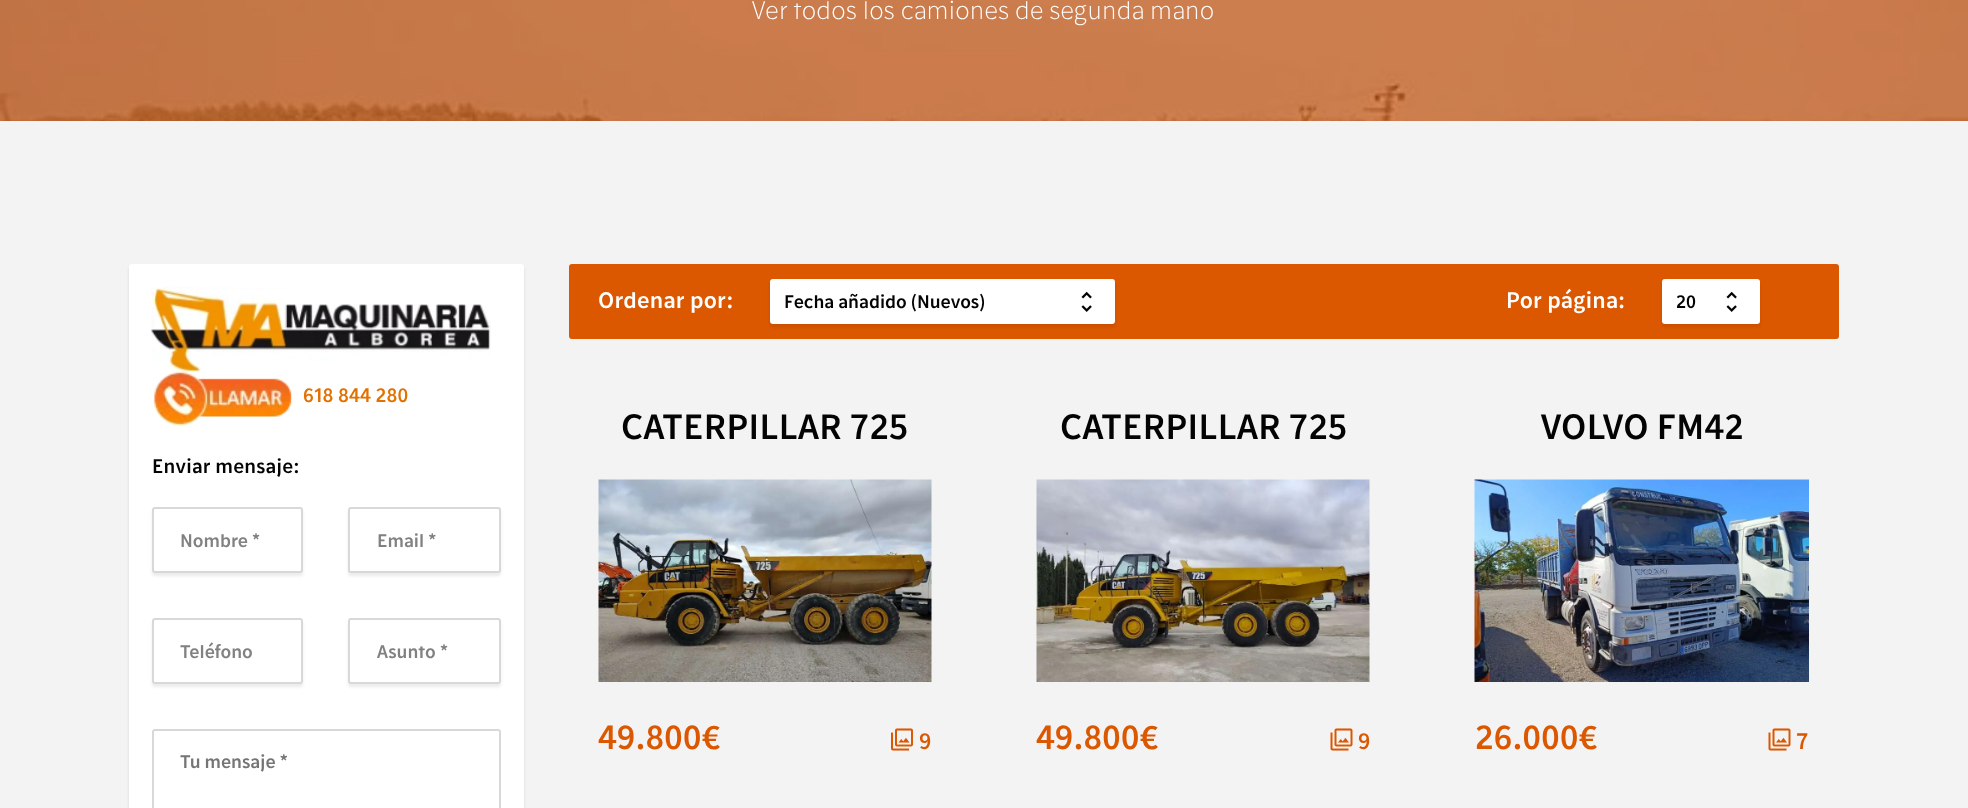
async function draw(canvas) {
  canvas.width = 1968;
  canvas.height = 808;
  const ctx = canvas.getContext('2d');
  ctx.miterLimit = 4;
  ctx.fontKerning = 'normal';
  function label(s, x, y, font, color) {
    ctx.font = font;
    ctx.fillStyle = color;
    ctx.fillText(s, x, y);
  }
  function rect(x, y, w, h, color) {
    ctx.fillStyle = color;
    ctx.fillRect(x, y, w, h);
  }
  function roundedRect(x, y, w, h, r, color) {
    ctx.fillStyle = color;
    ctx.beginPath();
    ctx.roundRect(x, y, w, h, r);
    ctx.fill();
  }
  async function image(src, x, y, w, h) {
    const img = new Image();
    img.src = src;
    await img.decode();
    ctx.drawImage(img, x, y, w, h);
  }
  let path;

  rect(0, 0, 1968, 808, '#f4f3f4');
  await image('assets/img1.png', 0, 0, 1968, 121);
  ctx.letterSpacing = '0.25px';
  label('Ver todos los camiones de segunda mano', 752, 19, '300 27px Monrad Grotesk', '#fff');
  ctx.fillStyle = '#0000001a';
  ctx.filter = 'blur(1.5px)';
  ctx.beginPath();
  ctx.roundRect(129, 267, 395, 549, 3);
  ctx.fill();
  ctx.filter = 'none';
  roundedRect(129, 264, 395, 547, 3, '#fff');
  await image('assets/img2.png', 151, 286, 340, 87);
  await image('assets/img3.png', 153, 371, 139, 55);
  label('618 844 280', 303, 402, '600 21px Monrad Grotesk', '#e27100');
  label('Enviar mensaje:', 152, 473, '600 21px Monrad Grotesk', '#040304');
  ctx.fillStyle = '#00000014';
  ctx.filter = 'blur(1.5px)';
  ctx.beginPath();
  ctx.roundRect(152, 510, 151, 66, 3);
  ctx.fill();
  ctx.filter = 'none';
  ctx.fillStyle = '#fff';
  ctx.beginPath();
  ctx.roundRect(153, 508, 149, 64, 2);
  ctx.fill();
  ctx.strokeStyle = '#d8d8d8';
  ctx.lineWidth = 2;
  ctx.stroke();
  ctx.letterSpacing = '0px';
  label('Nombre *', 180, 547, '600 19.5px Monrad Grotesk', '#828182');
  ctx.fillStyle = '#00000014';
  ctx.filter = 'blur(1.5px)';
  ctx.beginPath();
  ctx.roundRect(348, 510, 153, 66, 3);
  ctx.fill();
  ctx.filter = 'none';
  ctx.fillStyle = '#fff';
  ctx.beginPath();
  ctx.roundRect(349, 508, 151, 64, 2);
  ctx.fill();
  ctx.stroke();
  label('Email *', 377, 547, '600 19.5px Monrad Grotesk', '#828182');
  ctx.fillStyle = '#00000014';
  ctx.filter = 'blur(1.5px)';
  ctx.beginPath();
  ctx.roundRect(152, 621, 151, 66, 3);
  ctx.fill();
  ctx.filter = 'none';
  ctx.fillStyle = '#fff';
  ctx.beginPath();
  ctx.roundRect(153, 619, 149, 64, 2);
  ctx.fill();
  ctx.stroke();
  label('Teléfono', 180, 658, '600 19.5px Monrad Grotesk', '#828182');
  ctx.fillStyle = '#00000014';
  ctx.filter = 'blur(1.5px)';
  ctx.beginPath();
  ctx.roundRect(348, 621, 153, 66, 3);
  ctx.fill();
  ctx.filter = 'none';
  ctx.fillStyle = '#fff';
  ctx.beginPath();
  ctx.roundRect(349, 619, 151, 64, 2);
  ctx.fill();
  ctx.stroke();
  label('Asunto *', 377, 658, '600 19.5px Monrad Grotesk', '#828182');
  ctx.beginPath();
  ctx.roundRect(153, 730, 347, 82, 2);
  ctx.stroke();
  label('Tu mensaje *', 180, 768, '600 19.5px Monrad Grotesk', '#757575');
  roundedRect(569, 264, 1270, 75, 3, '#db5700');
  ctx.letterSpacing = '0.25px';
  label('Ordenar por:', 598, 308, '600 24px Monrad Grotesk', '#fff');
  roundedRect(770, 279, 345, 45, 3, '#fff');
  await image('assets/img4.png', 1081, 291, 11, 21);
  ctx.save();
  path = new Path2D('M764 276H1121V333H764ZM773 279H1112C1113.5 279 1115 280.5 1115 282V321C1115 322.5 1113.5 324 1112 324H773C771.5 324 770 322.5 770 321V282C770 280.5 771.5 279 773 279Z');
  ctx.clip(path, 'evenodd');
  ctx.fillStyle = '#00000014';
  ctx.filter = 'blur(1.5px)';
  ctx.beginPath();
  ctx.roundRect(770, 282, 345, 45, 3);
  ctx.fill();
  ctx.filter = 'none';
  ctx.restore();
  ctx.letterSpacing = '0px';
  label('Fecha añadido (Nuevos)', 784, 308, '600 19.5px Monrad Grotesk', '#040304');
  ctx.letterSpacing = '0.25px';
  label('Por página:', 1506, 308, '600 24px Monrad Grotesk', '#fff');
  roundedRect(1662, 279, 98, 45, 3, '#fff');
  await image('assets/img4.png', 1726, 291, 11, 21);
  ctx.save();
  path = new Path2D('M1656 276H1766V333H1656ZM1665 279H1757C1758.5 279 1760 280.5 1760 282V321C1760 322.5 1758.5 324 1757 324H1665C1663.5 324 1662 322.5 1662 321V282C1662 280.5 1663.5 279 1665 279Z');
  ctx.clip(path, 'evenodd');
  ctx.fillStyle = '#00000014';
  ctx.filter = 'blur(1.5px)';
  ctx.beginPath();
  ctx.roundRect(1662, 282, 98, 45, 3);
  ctx.fill();
  ctx.filter = 'none';
  ctx.restore();
  ctx.letterSpacing = '0px';
  label('20', 1676, 308, '600 19.5px Monrad Grotesk', '#040304');
  ctx.letterSpacing = '0.4px';
  label('CATERPILLAR 725', 621, 439, '600 37.5px Monrad Grotesk', '#040304');
  await image('assets/img5.png', 598, 479, 334, 203);
  ctx.letterSpacing = '0.25px';
  label('49.800€', 598, 749, '600 36px Monrad Grotesk', '#db5700');
  await image('assets/img6.png', 891, 728, 22, 23);
  label('9', 919, 749, '600 24px Monrad Grotesk', '#db5700');
  ctx.letterSpacing = '0.4px';
  label('CATERPILLAR 725', 1060, 439, '600 37.5px Monrad Grotesk', '#040304');
  await image('assets/img7.png', 1036, 479, 334, 203);
  ctx.letterSpacing = '0.25px';
  label('49.800€', 1036, 749, '600 36px Monrad Grotesk', '#db5700');
  await image('assets/img8.png', 1330, 728, 23, 23);
  label('9', 1358, 749, '600 24px Monrad Grotesk', '#db5700');
  ctx.letterSpacing = '0.4px';
  label('VOLVO FM42', 1541, 439, '600 37.5px Monrad Grotesk', '#040304');
  await image('assets/img9.png', 1474, 479, 335, 203);
  ctx.letterSpacing = '0.25px';
  label('26.000€', 1475, 749, '600 36px Monrad Grotesk', '#db5700');
  await image('assets/img8.png', 1768, 728, 23, 23);
  label('7', 1796, 749, '600 24px Monrad Grotesk', '#db5700');
}

draw(document.querySelector('canvas'));
